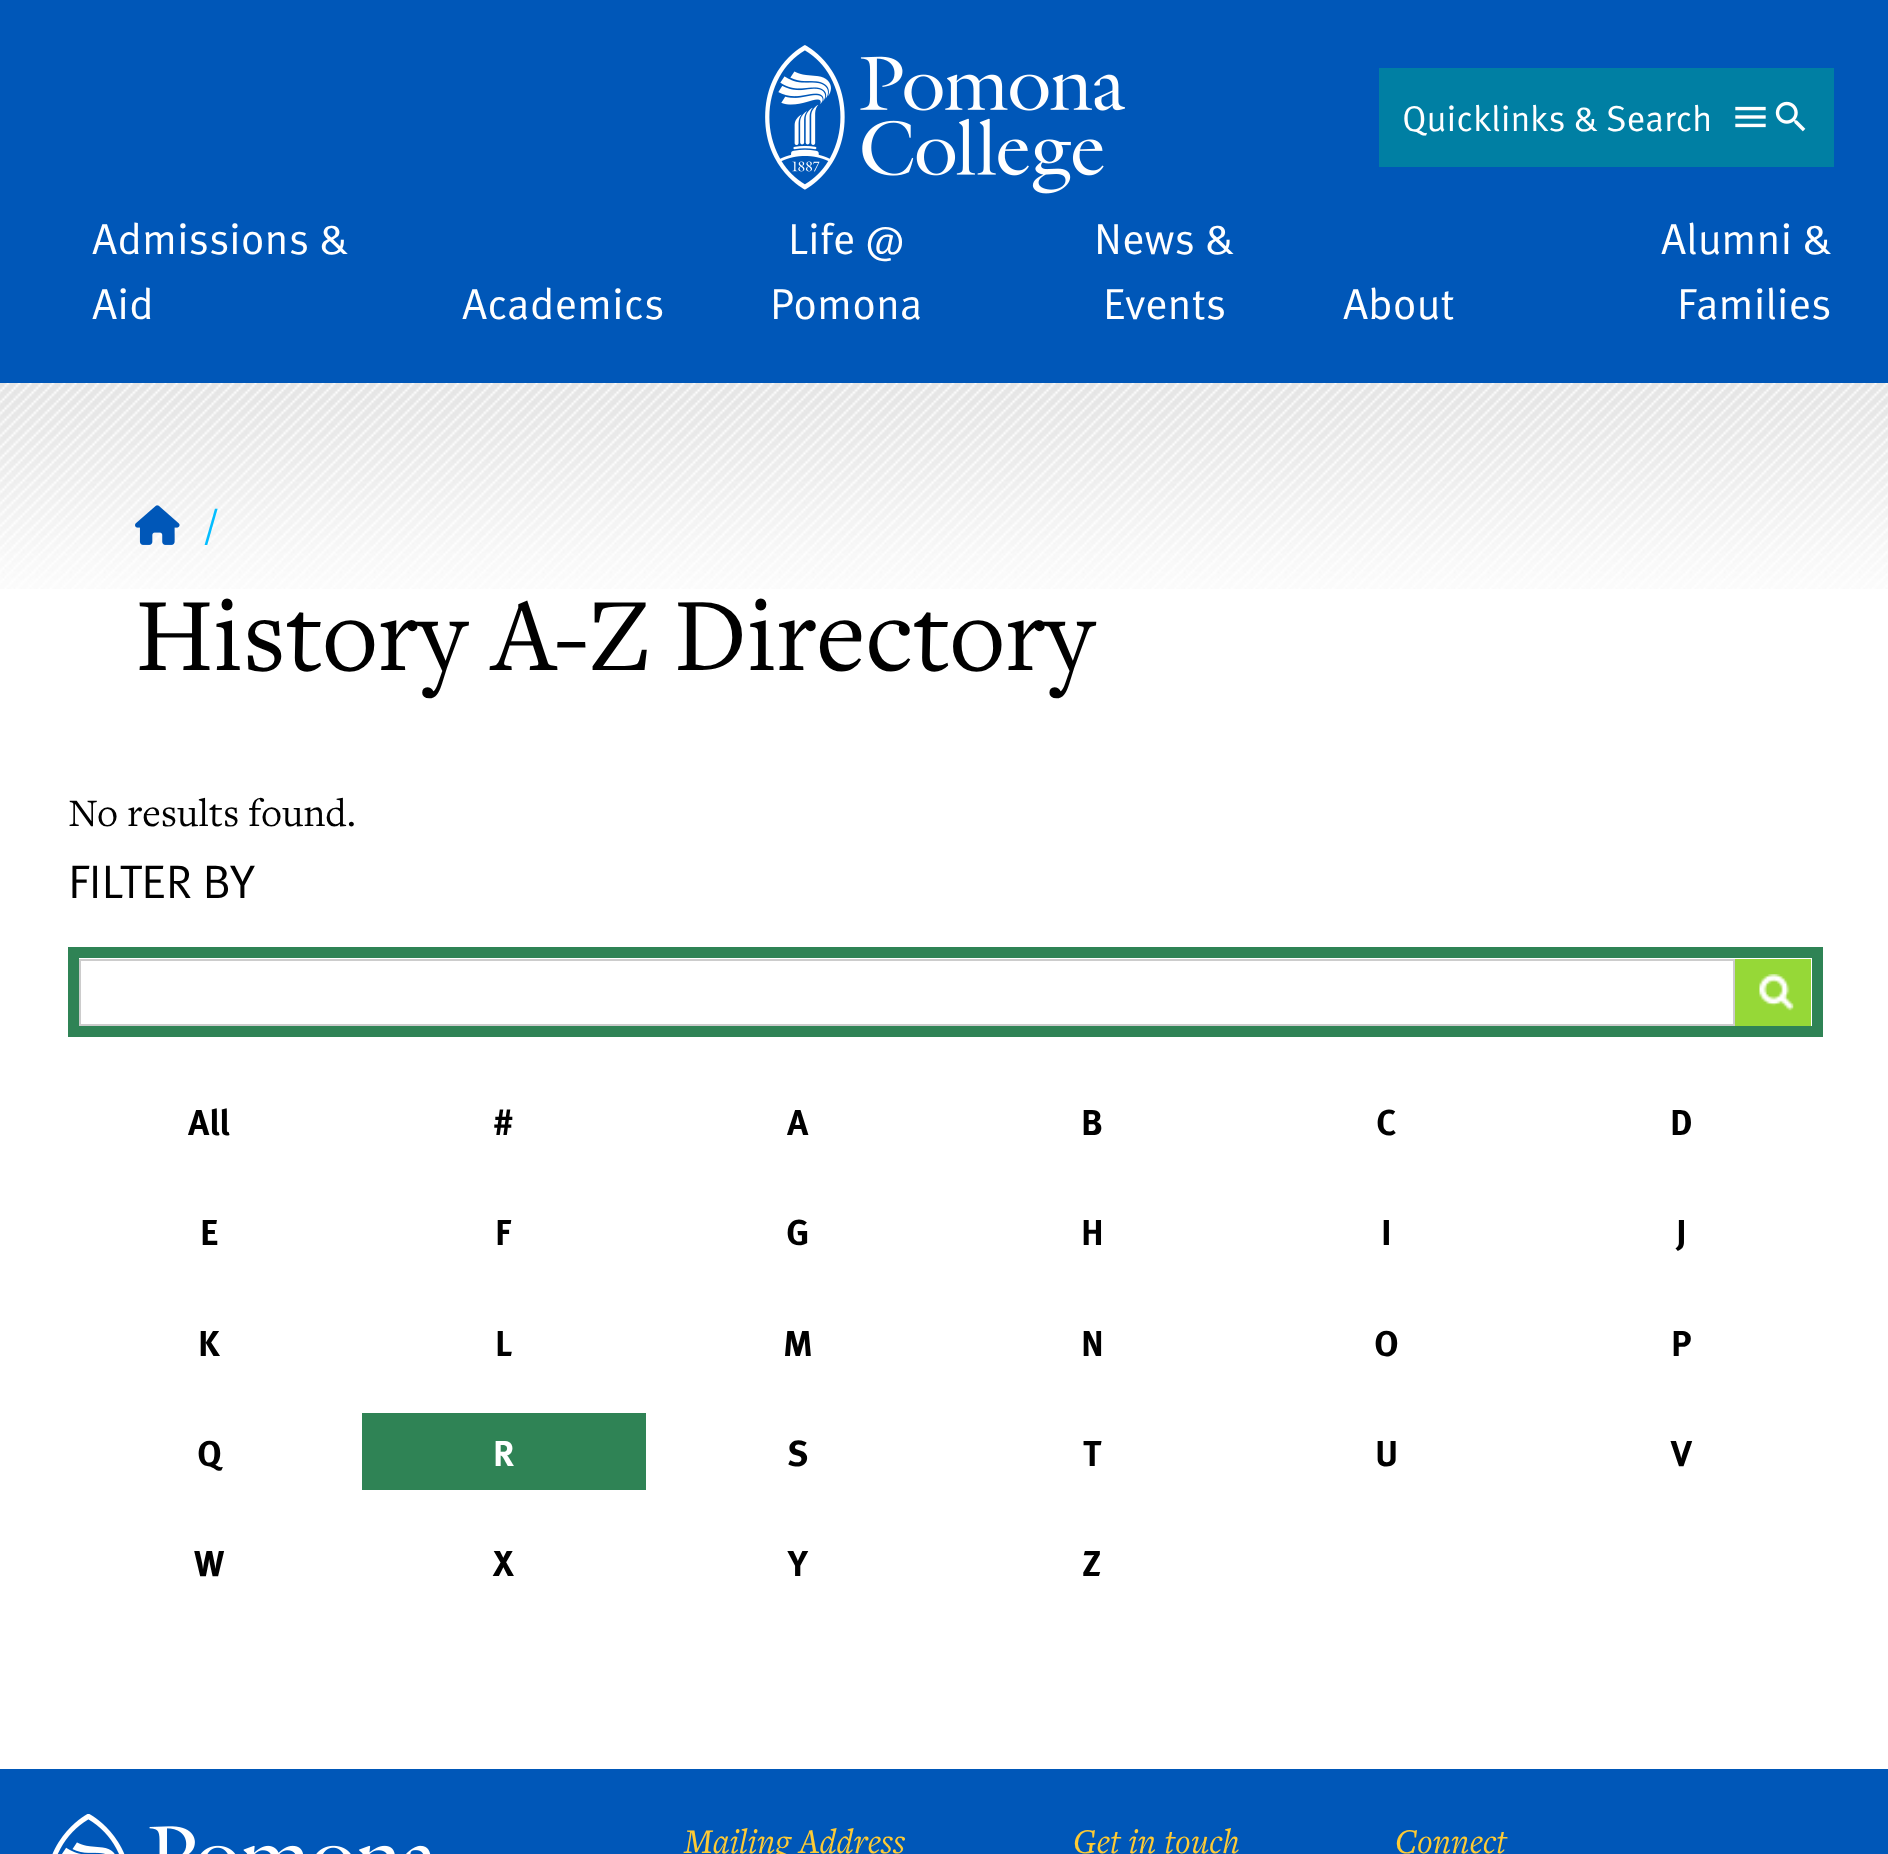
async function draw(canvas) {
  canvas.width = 1888;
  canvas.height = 1854;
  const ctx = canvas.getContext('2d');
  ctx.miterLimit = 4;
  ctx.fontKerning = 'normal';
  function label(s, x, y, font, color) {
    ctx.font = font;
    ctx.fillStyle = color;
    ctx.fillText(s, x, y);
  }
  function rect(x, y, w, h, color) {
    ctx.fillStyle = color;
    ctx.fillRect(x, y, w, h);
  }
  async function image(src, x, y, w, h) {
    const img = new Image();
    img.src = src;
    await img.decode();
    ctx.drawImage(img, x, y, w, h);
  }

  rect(0, 0, 1888, 1854, '#fff');
  rect(0, 0, 1888, 383, '#0057b8');
  rect(1379, 68, 455, 99, '#007fa3');
  label('Quicklinks & Search', 1402, 131, '36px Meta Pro', '#fff');
  await image('assets/img1.png', 1735, 106, 31, 22);
  await image('assets/img2.png', 1775, 101, 31, 31);
  await image('assets/img3.png', 765, 45, 360, 149);
  label('Admissions &', 92, 254, '43.25px Meta Pro', '#fff');
  label('Aid', 92, 319, '43.25px Meta Pro', '#fff');
  label('Academics', 462, 319, '43.25px Meta Pro', '#fff');
  label('Life @', 788, 254, '43.25px Meta Pro', '#fff');
  label('Pomona', 770, 319, '43.25px Meta Pro', '#fff');
  label('News &', 1094, 254, '43.25px Meta Pro', '#fff');
  label('Events', 1103, 319, '43.25px Meta Pro', '#fff');
  label('About', 1343, 319, '43.25px Meta Pro', '#fff');
  label('Alumni &', 1661, 254, '43.25px Meta Pro', '#fff');
  label('Families', 1677, 319, '43.25px Meta Pro', '#fff');
  await image('assets/img4.png', 0, 383, 1888, 206);
  await image('assets/img5.png', 135, 505, 45, 40);
  label('/', 202, 539, '40px Meta Pro', '#03bdff');
  label('History A-Z Directory', 135, 670, '108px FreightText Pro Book', '#000');
  label('No results found.', 68, 826, '40.5px FreightText Pro Book', '#000');
  label('FILTER BY', 68, 898, '47px Meta Pro', '#000');
  ctx.strokeStyle = '#2f8355';
  ctx.lineWidth = 11;
  ctx.strokeRect(73.5, 952.5, 1744, 79);
  ctx.strokeStyle = '#ccc';
  ctx.lineWidth = 2;
  ctx.strokeRect(80, 960, 1654, 65);
  rect(1735, 959, 76, 67, '#96d837');
  await image('assets/img6.png', 1759, 974, 35, 37);
  label('All', 188, 1135, 'bold 36px Meta Pro', '#000');
  label('#', 493, 1135, 'bold 36px Meta Pro', '#000');
  label('A', 787, 1135, 'bold 36px Meta Pro', '#000');
  label('B', 1081, 1135, 'bold 36px Meta Pro', '#000');
  label('C', 1376, 1135, 'bold 36px Meta Pro', '#000');
  label('D', 1670, 1135, 'bold 36px Meta Pro', '#000');
  label('E', 200, 1245, 'bold 36px Meta Pro', '#000');
  label('F', 495, 1245, 'bold 36px Meta Pro', '#000');
  label('G', 786, 1245, 'bold 36px Meta Pro', '#000');
  label('H', 1081, 1245, 'bold 36px Meta Pro', '#000');
  label('I', 1381, 1245, 'bold 36px Meta Pro', '#000');
  label('J', 1676, 1245, 'bold 36px Meta Pro', '#000');
  label('K', 198, 1356, 'bold 36px Meta Pro', '#000');
  label('L', 495, 1356, 'bold 36px Meta Pro', '#000');
  label('M', 783, 1356, 'bold 36px Meta Pro', '#000');
  label('N', 1081, 1356, 'bold 36px Meta Pro', '#000');
  label('O', 1374, 1356, 'bold 36px Meta Pro', '#000');
  label('P', 1671, 1356, 'bold 36px Meta Pro', '#000');
  label('Q', 197, 1466, 'bold 36px Meta Pro', '#000');
  rect(362, 1413, 284, 77, '#2f8355');
  label('R', 493, 1466, 'bold 36px Meta Pro', '#fff');
  label('S', 787, 1466, 'bold 36px Meta Pro', '#000');
  label('T', 1083, 1466, 'bold 36px Meta Pro', '#000');
  label('U', 1375, 1466, 'bold 36px Meta Pro', '#000');
  label('V', 1671, 1466, 'bold 36px Meta Pro', '#000');
  label('W', 194, 1576, 'bold 36px Meta Pro', '#000');
  label('X', 493, 1576, 'bold 36px Meta Pro', '#000');
  label('Y', 788, 1576, 'bold 36px Meta Pro', '#000');
  label('Z', 1082, 1576, 'bold 36px Meta Pro', '#000');
  rect(0, 1769, 1888, 85, '#0057b8');
  await image('assets/img7.png', 52, 1814, 379, 40);
  label('Mailing Address', 684, 1853, 'italic 36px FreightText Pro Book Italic', '#fecb34');
  label('Get in touch', 1073, 1853, 'italic 36px FreightText Pro Book Italic', '#fecb34');
  label('Connect', 1395, 1853, 'italic 36px FreightText Pro Book Italic', '#fecb34');
}

draw(document.querySelector('canvas'));
